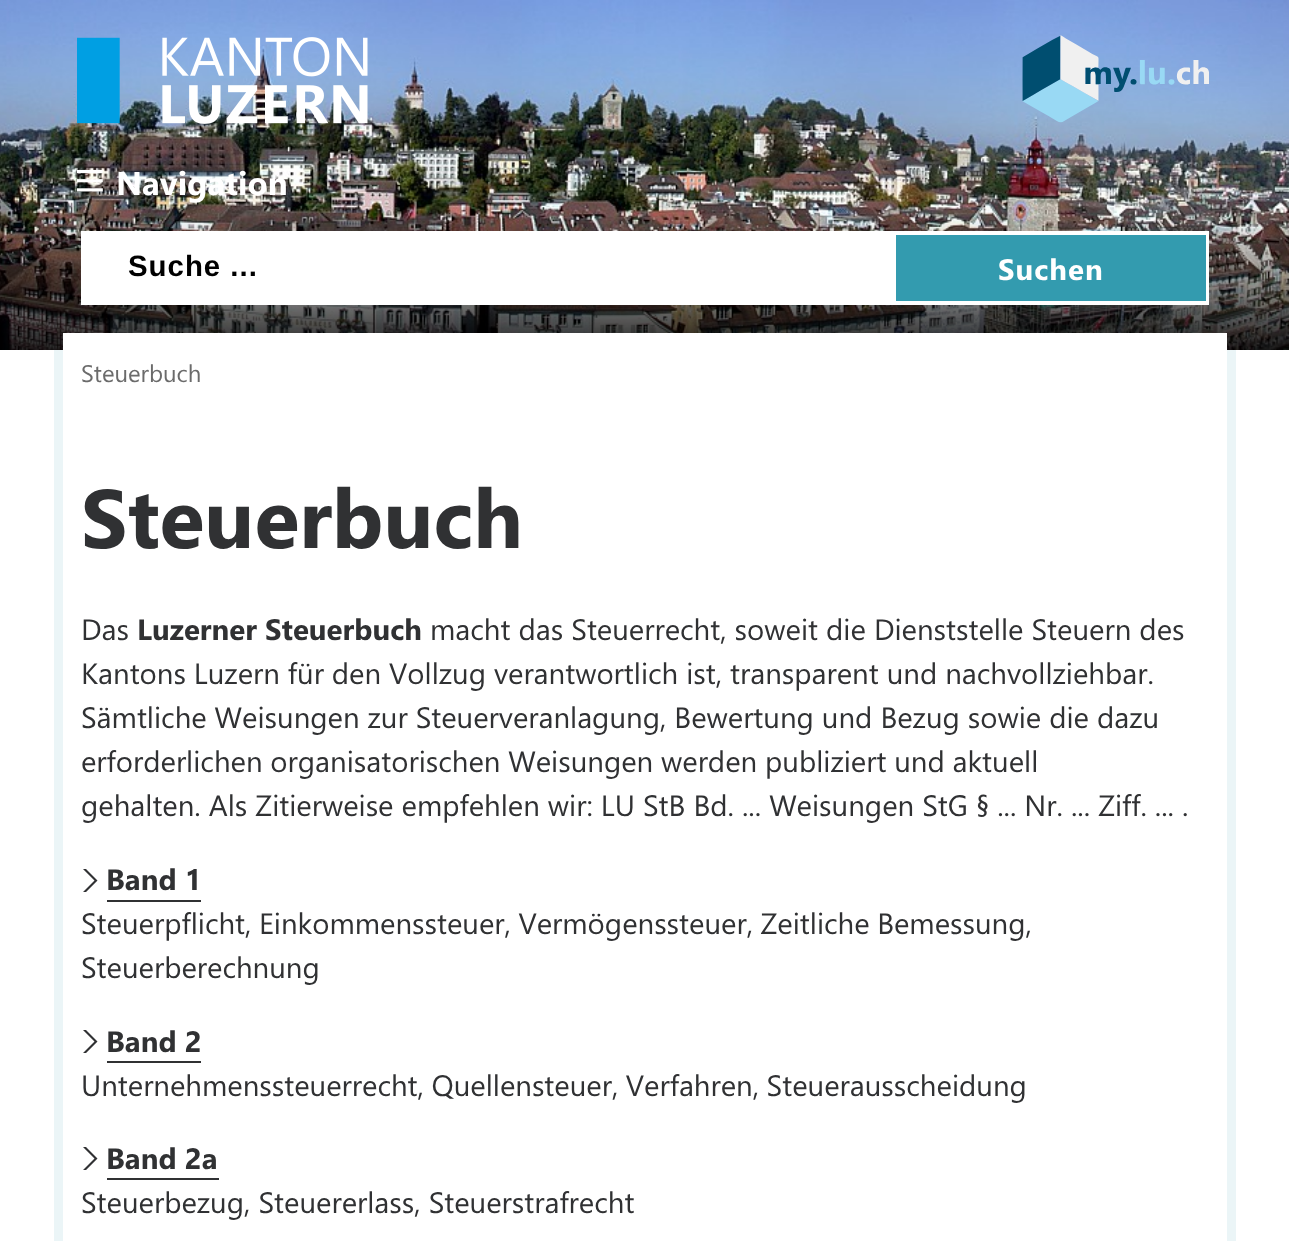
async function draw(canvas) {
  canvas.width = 1289;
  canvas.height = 1241;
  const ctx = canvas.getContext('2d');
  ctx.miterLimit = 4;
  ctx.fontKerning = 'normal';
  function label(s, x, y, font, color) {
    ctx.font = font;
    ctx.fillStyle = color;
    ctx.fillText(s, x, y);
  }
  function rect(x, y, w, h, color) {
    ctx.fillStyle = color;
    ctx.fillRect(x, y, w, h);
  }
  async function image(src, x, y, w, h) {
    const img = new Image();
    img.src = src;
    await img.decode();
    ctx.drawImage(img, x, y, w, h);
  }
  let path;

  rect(0, 0, 1289, 1241, '#fff');
  await image('assets/img1.png', 0, 0, 1289, 350);
  await image('assets/img2.png', 77, 37, 291, 87);
  await image('assets/img3.png', 1022, 35, 187, 88);
  await image('assets/img4.png', 77, 169, 26, 23);
  label('Navigation', 116, 195, 'bold 33px Segoe UI', '#fff');
  rect(81, 231, 1128, 74, '#fff');
  ctx.letterSpacing = '1px';
  label('Suche ...', 128, 276, 'bold 29.4px Liberation Sans', '#000');
  rect(896, 235, 310, 66, '#339baf');
  label('Suchen', 998, 280, 'bold 29.4px Segoe UI', '#fff');
  rect(63, 333, 1164, 17, '#fff');
  rect(54, 350, 9, 891, '#ebf5f7');
  ctx.letterSpacing = '0px';
  label('Steuerbuch', 81, 382, '24px Segoe UI', '#6b6b6b');
  rect(1227, 350, 9, 891, '#ebf5f7');
  label('Steuerbuch', 81, 548, 'bold 82.75px Segoe UI', '#303133');
  label('Das', 81, 640, '29.4px Segoe UI', '#303133');
  label('Luzerner Steuerbuch', 137, 640, 'bold 29.4px Segoe UI', '#303133');
  label('macht das Steuerrecht, soweit die Dienststelle Steuern des', 430, 640, '29.4px Segoe UI', '#303133');
  ctx.wordSpacing = '-0.1px';
  label('Kantons Luzern für den Vollzug verantwortlich ist, transparent und nachvollziehbar.', 81, 684, '29.4px Segoe UI', '#303133');
  label('Sämtliche Weisungen zur Steuerveranlagung, Bewertung und Bezug sowie die dazu', 81, 728, '29.4px Segoe UI', '#303133');
  ctx.wordSpacing = '-0.25px';
  label('erforderlichen organisatorischen Weisungen werden publiziert und aktuell', 81, 772, '29.4px Segoe UI', '#303133');
  ctx.wordSpacing = '0px';
  label('gehalten. Als Zitierweise empfehlen wir: LU StB Bd. ... Weisungen StG § ... Nr. ... Ziff. ... .', 81, 816, '29.4px Segoe UI', '#303133');
  path = new Path2D('M94.5 880.5L83 892H86L97.5 880.5L86 869H83Z');
  ctx.fill(path);
  label('Band 1', 106, 890, 'bold 29.4px Segoe UI', '#303133');
  rect(107, 900, 94, 2, '#303133');
  ctx.wordSpacing = '-0.5px';
  label('Steuerpflicht, Einkommenssteuer, Vermögenssteuer, Zeitliche Bemessung,', 81, 934, '29.4px Segoe UI', '#303133');
  ctx.wordSpacing = '0px';
  label('Steuerberechnung', 81, 978, '29.4px Segoe UI', '#303133');
  path = new Path2D('M94.5 1041.5L83 1053H86L97.5 1041.5L86 1030H83Z');
  ctx.fill(path);
  label('Band 2', 106, 1052, 'bold 29.4px Segoe UI', '#303133');
  rect(107, 1061, 94, 2, '#303133');
  ctx.wordSpacing = '-0.5px';
  label('Unternehmenssteuerrecht, Quellensteuer, Verfahren, Steuerausscheidung', 81, 1096, '29.4px Segoe UI', '#303133');
  path = new Path2D('M94.5 1158.5L83 1170H86L97.5 1158.5L86 1147H83Z');
  ctx.fill(path);
  ctx.wordSpacing = '0px';
  label('Band 2a', 106, 1169, 'bold 29.4px Segoe UI', '#303133');
  rect(107, 1178, 112, 2, '#303133');
  label('Steuerbezug, Steuererlass, Steuerstrafrecht', 81, 1213, '29.4px Segoe UI', '#303133');
}

draw(document.querySelector('canvas'));
